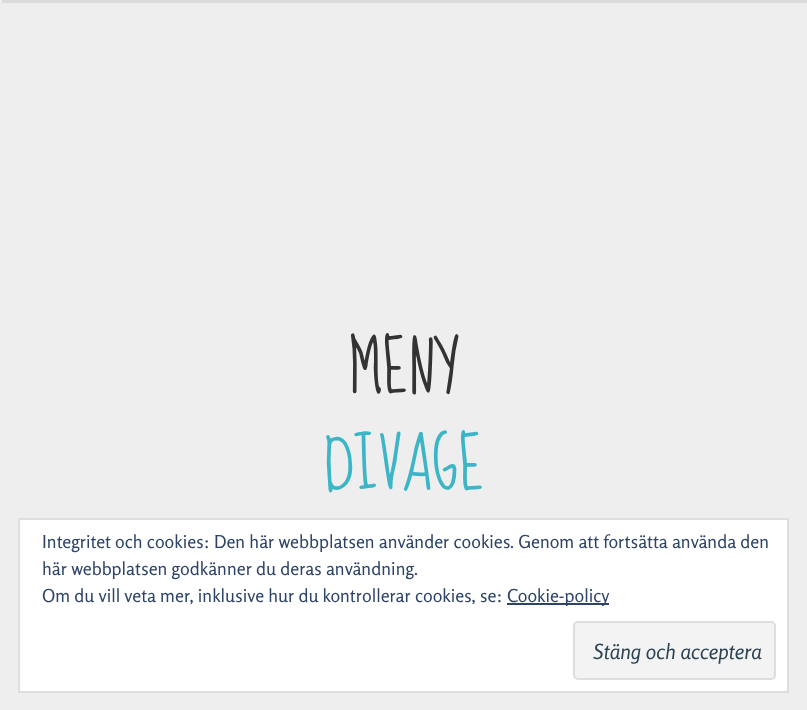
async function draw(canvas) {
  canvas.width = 807;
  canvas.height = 710;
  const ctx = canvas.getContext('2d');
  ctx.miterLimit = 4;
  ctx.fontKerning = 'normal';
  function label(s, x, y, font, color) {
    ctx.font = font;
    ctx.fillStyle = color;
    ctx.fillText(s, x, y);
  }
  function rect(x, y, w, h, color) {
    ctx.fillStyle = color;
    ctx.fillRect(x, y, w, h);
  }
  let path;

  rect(0, 0, 807, 710, '#eee');
  ctx.fillStyle = '#00000014';
  path = new Path2D('M2-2V3H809V-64H807V-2Z');
  ctx.fill(path);
  label('MENY', 349, 392, '63px Sue Ellen Francisco', '#333');
  label('DIVAGE', 324, 489, '63px Sue Ellen Francisco', '#3cb5c7');
  ctx.fillStyle = '#fff';
  ctx.beginPath();
  ctx.rect(19, 519, 769, 173);
  ctx.fill();
  ctx.strokeStyle = '#dedede';
  ctx.lineWidth = 2;
  ctx.stroke();
  label('Integritet och cookies: Den här webbplatsen använder cookies. Genom att fortsätta använda den', 42, 548, '18px Rosario', '#2e4467');
  label('här webbplatsen godkänner du deras användning.', 42, 575, '18px Rosario', '#2e4467');
  label('Om du vill veta mer, inklusive hur du kontrollerar cookies, se:', 42, 602, '18px Rosario', '#2e4467');
  rect(507, 603, 102, 2, '#2e4467');
  label('Cookie-policy', 507, 602, '18px Rosario', '#2e4467');
  ctx.fillStyle = '#f3f3f3';
  ctx.beginPath();
  ctx.roundRect(574, 622, 201, 57, 4);
  ctx.fill();
  ctx.stroke();
  label('Stäng och acceptera', 593, 659, 'italic 21px Rosario', '#2e4453');
}

draw(document.querySelector('canvas'));
